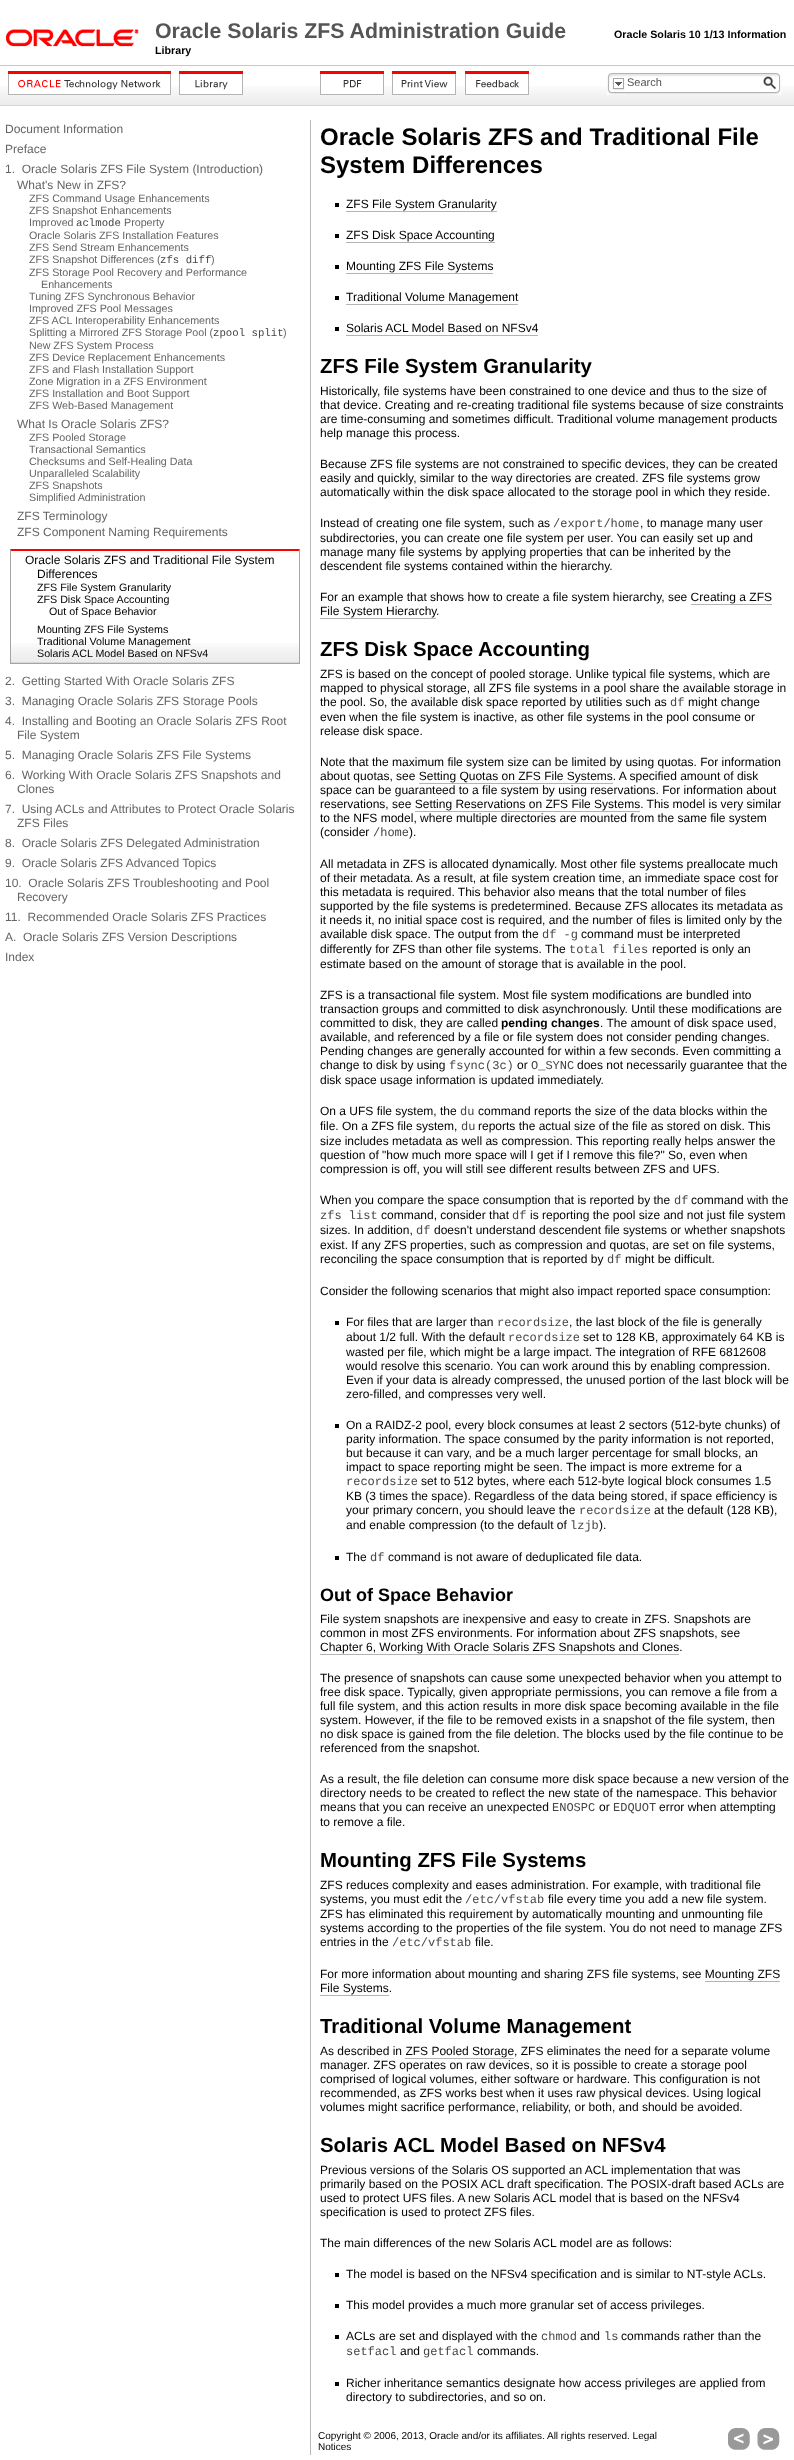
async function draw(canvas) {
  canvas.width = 794;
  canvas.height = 2460;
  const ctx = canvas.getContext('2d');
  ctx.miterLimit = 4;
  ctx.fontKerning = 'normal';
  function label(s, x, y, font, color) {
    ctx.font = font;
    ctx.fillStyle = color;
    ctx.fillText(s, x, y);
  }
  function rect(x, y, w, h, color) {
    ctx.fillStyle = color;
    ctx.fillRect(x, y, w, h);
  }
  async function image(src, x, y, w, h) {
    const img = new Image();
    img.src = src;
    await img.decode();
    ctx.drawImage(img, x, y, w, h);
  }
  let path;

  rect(0, 0, 794, 2460, '#fff');
  await image('assets/img1.png', 6, 29, 133, 18);
  label('Oracle Solaris ZFS Administration Guide', 155, 38, 'bold 21.3px Liberation Sans', '#555');
  label('Oracle Solaris 10 1/13 Information', 614, 38, 'bold 10.7px Liberation Sans', '#000');
  label('Library', 155, 54, 'bold 10.7px Liberation Sans', '#000');
  await image('assets/img2.png', 0, 86, 794, 20);
  rect(0, 65, 794, 1, '#c8c8c8');
  await image('assets/img3.png', 8, 71, 163, 24);
  await image('assets/img4.png', 179, 71, 64, 24);
  await image('assets/img5.png', 320, 71, 64, 24);
  await image('assets/img6.png', 392, 71, 64, 24);
  await image('assets/img7.png', 465, 71, 64, 24);
  await image('assets/img8.png', 607, 73, 20, 22);
  await image('assets/img9.png', 627, 73, 133, 21);
  label('Search', 627, 86, '11px Liberation Sans', '#555');
  await image('assets/img10.png', 760, 73, 21, 22);
  rect(310, 120, 1, 2335, '#b9b9b9');
  label('Document Information', 5, 133, '12px Liberation Sans', '#646464');
  label('Preface', 5, 153, '12px Liberation Sans', '#646464');
  label('1.  Oracle Solaris ZFS File System (Introduction)', 5, 173, '12px Liberation Sans', '#646464');
  label('What\'s New in ZFS?', 17, 189, '12px Liberation Sans', '#646464');
  label('ZFS Command Usage Enhancements', 29, 202, '10.7px Liberation Sans', '#646464');
  label('ZFS Snapshot Enhancements', 29, 214, '10.7px Liberation Sans', '#646464');
  label('Improved', 29, 226, '10.7px Liberation Sans', '#646464');
  label('aclmode', 76, 226, '10.7px Liberation Mono', '#444');
  label('Property', 124, 226, '10.7px Liberation Sans', '#646464');
  label('Oracle Solaris ZFS Installation Features', 29, 239, '10.7px Liberation Sans', '#646464');
  label('ZFS Send Stream Enhancements', 29, 251, '10.7px Liberation Sans', '#646464');
  label('ZFS Snapshot Differences (', 29, 263, '10.7px Liberation Sans', '#646464');
  label('zfs diff', 160, 263, '10.7px Liberation Mono', '#444');
  label(')', 211, 263, '10.7px Liberation Sans', '#646464');
  label('ZFS Storage Pool Recovery and Performance', 29, 276, '10.7px Liberation Sans', '#646464');
  label('Enhancements', 41, 288, '10.7px Liberation Sans', '#646464');
  label('Tuning ZFS Synchronous Behavior', 29, 300, '10.7px Liberation Sans', '#646464');
  label('Improved ZFS Pool Messages', 29, 312, '10.7px Liberation Sans', '#646464');
  label('ZFS ACL Interoperability Enhancements', 29, 324, '10.7px Liberation Sans', '#646464');
  label('Splitting a Mirrored ZFS Storage Pool (', 29, 336, '10.7px Liberation Sans', '#646464');
  label('zpool split', 213, 336, '10.7px Liberation Mono', '#444');
  label(')', 283, 336, '10.7px Liberation Sans', '#646464');
  label('New ZFS System Process', 29, 349, '10.7px Liberation Sans', '#646464');
  label('ZFS Device Replacement Enhancements', 29, 361, '10.7px Liberation Sans', '#646464');
  label('ZFS and Flash Installation Support', 29, 373, '10.7px Liberation Sans', '#646464');
  label('Zone Migration in a ZFS Environment', 29, 385, '10.7px Liberation Sans', '#646464');
  label('ZFS Installation and Boot Support', 29, 397, '10.7px Liberation Sans', '#646464');
  label('ZFS Web-Based Management', 29, 409, '10.7px Liberation Sans', '#646464');
  label('What Is Oracle Solaris ZFS?', 17, 428, '12px Liberation Sans', '#646464');
  label('ZFS Pooled Storage', 29, 441, '10.7px Liberation Sans', '#646464');
  label('Transactional Semantics', 29, 453, '10.7px Liberation Sans', '#646464');
  label('Checksums and Self-Healing Data', 29, 465, '10.7px Liberation Sans', '#646464');
  label('Unparalleled Scalability', 29, 477, '10.7px Liberation Sans', '#646464');
  label('ZFS Snapshots', 29, 489, '10.7px Liberation Sans', '#646464');
  label('Simplified Administration', 29, 501, '10.7px Liberation Sans', '#646464');
  label('ZFS Terminology', 17, 520, '12px Liberation Sans', '#646464');
  label('ZFS Component Naming Requirements', 17, 536, '12px Liberation Sans', '#646464');
  await image('assets/img11.png', 11, 643, 288, 20);
  ctx.fillStyle = '#f00';
  path = new Path2D('M10 549H300L299 551H11Z');
  ctx.fill(path);
  ctx.fillStyle = '#a5a5a5';
  path = new Path2D('M300 549V664L299 663V551Z');
  ctx.fill(path);
  rect(10, 663, 290, 1, '#a5a5a5');
  path = new Path2D('M10 664V549L11 551V663Z');
  ctx.fill(path);
  label('Oracle Solaris ZFS and Traditional File System', 25, 564, '12px Liberation Sans', '#000');
  label('Differences', 37, 578, '12px Liberation Sans', '#000');
  label('ZFS File System Granularity', 37, 591, '10.7px Liberation Sans', '#000');
  label('ZFS Disk Space Accounting', 37, 603, '10.7px Liberation Sans', '#000');
  label('Out of Space Behavior', 49, 615, '10.7px Liberation Sans', '#000');
  label('Mounting ZFS File Systems', 37, 633, '10.7px Liberation Sans', '#000');
  label('Traditional Volume Management', 37, 645, '10.7px Liberation Sans', '#000');
  label('Solaris ACL Model Based on NFSv4', 37, 657, '10.7px Liberation Sans', '#000');
  label('2.  Getting Started With Oracle Solaris ZFS', 5, 685, '12px Liberation Sans', '#646464');
  label('3.  Managing Oracle Solaris ZFS Storage Pools', 5, 705, '12px Liberation Sans', '#646464');
  label('4.  Installing and Booting an Oracle Solaris ZFS Root', 5, 725, '12px Liberation Sans', '#646464');
  label('File System', 17, 739, '12px Liberation Sans', '#646464');
  label('5.  Managing Oracle Solaris ZFS File Systems', 5, 759, '12px Liberation Sans', '#646464');
  label('6.  Working With Oracle Solaris ZFS Snapshots and', 5, 779, '12px Liberation Sans', '#646464');
  label('Clones', 17, 793, '12px Liberation Sans', '#646464');
  label('7.  Using ACLs and Attributes to Protect Oracle Solaris', 5, 813, '12px Liberation Sans', '#646464');
  label('ZFS Files', 17, 827, '12px Liberation Sans', '#646464');
  label('8.  Oracle Solaris ZFS Delegated Administration', 5, 847, '12px Liberation Sans', '#646464');
  label('9.  Oracle Solaris ZFS Advanced Topics', 5, 867, '12px Liberation Sans', '#646464');
  label('10.  Oracle Solaris ZFS Troubleshooting and Pool', 5, 887, '12px Liberation Sans', '#646464');
  label('Recovery', 17, 901, '12px Liberation Sans', '#646464');
  label('11.  Recommended Oracle Solaris ZFS Practices', 5, 921, '12px Liberation Sans', '#646464');
  label('A.  Oracle Solaris ZFS Version Descriptions', 5, 941, '12px Liberation Sans', '#646464');
  label('Index', 5, 961, '12px Liberation Sans', '#646464');
  label('Oracle Solaris ZFS and Traditional File', 320, 145, 'bold 24px Liberation Sans', '#000');
  label('System Differences', 320, 173, 'bold 24px Liberation Sans', '#000');
  rect(335, 203, 4, 4, '#000');
  label('ZFS File System Granularity', 346, 208, '12px Liberation Sans', '#000');
  rect(346, 211, 151, 1, '#b4b4b4');
  rect(335, 234, 4, 4, '#000');
  label('ZFS Disk Space Accounting', 346, 239, '12px Liberation Sans', '#000');
  rect(346, 242, 149, 1, '#b4b4b4');
  rect(335, 265, 4, 4, '#000');
  label('Mounting ZFS File Systems', 346, 270, '12px Liberation Sans', '#000');
  rect(346, 273, 147, 1, '#b4b4b4');
  rect(335, 296, 4, 4, '#000');
  label('Traditional Volume Management', 346, 301, '12px Liberation Sans', '#000');
  rect(346, 304, 172, 1, '#b4b4b4');
  rect(335, 327, 4, 4, '#000');
  label('Solaris ACL Model Based on NFSv4', 346, 332, '12px Liberation Sans', '#000');
  rect(346, 335, 192, 1, '#b4b4b4');
  label('ZFS File System Granularity', 320, 373, 'bold 20.4px Liberation Sans', '#000');
  label('Historically, file systems have been constrained to one device and thus to the size of', 320, 395, '12px Liberation Sans', '#000');
  label('that device. Creating and re-creating traditional file systems because of size constraints', 320, 409, '12px Liberation Sans', '#000');
  label('are time-consuming and sometimes difficult. Traditional volume management products', 320, 423, '12px Liberation Sans', '#000');
  label('help manage this process.', 320, 437, '12px Liberation Sans', '#000');
  label('Because ZFS file systems are not constrained to specific devices, they can be created', 320, 468, '12px Liberation Sans', '#000');
  label('easily and quickly, similar to the way directories are created. ZFS file systems grow', 320, 482, '12px Liberation Sans', '#000');
  label('automatically within the disk space allocated to the storage pool in which they reside.', 320, 496, '12px Liberation Sans', '#000');
  label('Instead of creating one file system, such as', 320, 527, '12px Liberation Sans', '#000');
  label('/export/home', 553, 527, '12px Liberation Mono', '#444');
  label(', to manage many user', 640, 527, '12px Liberation Sans', '#000');
  label('subdirectories, you can create one file system per user. You can easily set up and', 320, 542, '12px Liberation Sans', '#000');
  label('manage many file systems by applying properties that can be inherited by the', 320, 556, '12px Liberation Sans', '#000');
  label('descendent file systems contained within the hierarchy.', 320, 570, '12px Liberation Sans', '#000');
  label('For an example that shows how to create a file system hierarchy, see Creating a ZFS', 320, 601, '12px Liberation Sans', '#000');
  label('File System Hierarchy', 320, 615, '12px Liberation Sans', '#000');
  rect(691, 604, 81, 1, '#b4b4b4');
  rect(320, 618, 116, 1, '#b4b4b4');
  label('.', 436, 615, '12px Liberation Sans', '#000');
  label('ZFS Disk Space Accounting', 320, 656, 'bold 20.4px Liberation Sans', '#000');
  label('ZFS is based on the concept of pooled storage. Unlike typical file systems, which are', 320, 678, '12px Liberation Sans', '#000');
  label('mapped to physical storage, all ZFS file systems in a pool share the available storage in', 320, 692, '12px Liberation Sans', '#000');
  label('the pool. So, the available disk space reported by utilities such as', 320, 706, '12px Liberation Sans', '#000');
  label('df', 670, 706, '12px Liberation Mono', '#444');
  label('might change', 688, 706, '12px Liberation Sans', '#000');
  label('even when the file system is inactive, as other file systems in the pool consume or', 320, 721, '12px Liberation Sans', '#000');
  label('release disk space.', 320, 735, '12px Liberation Sans', '#000');
  label('Note that the maximum file system size can be limited by using quotas. For information', 320, 766, '12px Liberation Sans', '#000');
  label('about quotas, see Setting Quotas on ZFS File Systems. A specified amount of disk', 320, 780, '12px Liberation Sans', '#000');
  rect(419, 783, 194, 1, '#b4b4b4');
  label('space can be guaranteed to a file system by using reservations. For information about', 320, 794, '12px Liberation Sans', '#000');
  label('reservations, see Setting Reservations on ZFS File Systems. This model is very similar', 320, 808, '12px Liberation Sans', '#000');
  rect(415, 811, 225, 1, '#b4b4b4');
  label('to the NFS model, where multiple directories are mounted from the same file system', 320, 822, '12px Liberation Sans', '#000');
  label('(consider', 320, 836, '12px Liberation Sans', '#000');
  label('/home', 373, 836, '12px Liberation Mono', '#444');
  label(').', 409, 836, '12px Liberation Sans', '#000');
  label('All metadata in ZFS is allocated dynamically. Most other file systems preallocate much', 320, 868, '12px Liberation Sans', '#000');
  label('of their metadata. As a result, at file system creation time, an immediate space cost for', 320, 882, '12px Liberation Sans', '#000');
  label('this metadata is required. This behavior also means that the total number of files', 320, 896, '12px Liberation Sans', '#000');
  label('supported by the file systems is predetermined. Because ZFS allocates its metadata as', 320, 910, '12px Liberation Sans', '#000');
  label('it needs it, no initial space cost is required, and the number of files is limited only by the', 320, 924, '12px Liberation Sans', '#000');
  label('available disk space. The output from the', 320, 938, '12px Liberation Sans', '#000');
  label('df -g', 542, 938, '12px Liberation Mono', '#444');
  label('command must be interpreted', 581, 938, '12px Liberation Sans', '#000');
  label('differently for ZFS than other file systems. The', 320, 953, '12px Liberation Sans', '#000');
  label('total files', 569, 953, '12px Liberation Mono', '#444');
  label('reported is only an', 652, 953, '12px Liberation Sans', '#000');
  label('estimate based on the amount of storage that is available in the pool.', 320, 968, '12px Liberation Sans', '#000');
  label('ZFS is a transactional file system. Most file system modifications are bundled into', 320, 999, '12px Liberation Sans', '#000');
  label('transaction groups and committed to disk asynchronously. Until these modifications are', 320, 1013, '12px Liberation Sans', '#000');
  label('committed to disk, they are called', 320, 1027, '12px Liberation Sans', '#000');
  label('pending changes', 501, 1027, 'bold 12px Liberation Sans', '#000');
  label('. The amount of disk space used,', 600, 1027, '12px Liberation Sans', '#000');
  label('available, and referenced by a file or file system does not consider pending changes.', 320, 1041, '12px Liberation Sans', '#000');
  label('Pending changes are generally accounted for within a few seconds. Even committing a', 320, 1055, '12px Liberation Sans', '#000');
  label('change to disk by using', 320, 1069, '12px Liberation Sans', '#000');
  label('fsync(3c)', 449, 1069, '12px Liberation Mono', '#444');
  label('or', 517, 1069, '12px Liberation Sans', '#000');
  label('O_SYNC', 531, 1069, '12px Liberation Mono', '#444');
  label('does not necessarily guarantee that the', 577, 1069, '12px Liberation Sans', '#000');
  label('disk space usage information is updated immediately.', 320, 1084, '12px Liberation Sans', '#000');
  label('On a UFS file system, the', 320, 1115, '12px Liberation Sans', '#000');
  label('du', 460, 1115, '12px Liberation Mono', '#444');
  label('command reports the size of the data blocks within the', 478, 1115, '12px Liberation Sans', '#000');
  label('file. On a ZFS file system,', 320, 1130, '12px Liberation Sans', '#000');
  label('du', 461, 1130, '12px Liberation Mono', '#444');
  label('reports the actual size of the file as stored on disk. This', 478, 1130, '12px Liberation Sans', '#000');
  label('size includes metadata as well as compression. This reporting really helps answer the', 320, 1145, '12px Liberation Sans', '#000');
  label('question of "how much more space will I get if I remove this file?" So, even when', 320, 1159, '12px Liberation Sans', '#000');
  label('compression is off, you will still see different results between ZFS and UFS.', 320, 1173, '12px Liberation Sans', '#000');
  label('When you compare the space consumption that is reported by the', 320, 1204, '12px Liberation Sans', '#000');
  label('df', 674, 1204, '12px Liberation Mono', '#444');
  label('command with the', 691, 1204, '12px Liberation Sans', '#000');
  label('zfs list', 320, 1219, '12px Liberation Mono', '#444');
  label('command, consider that', 381, 1219, '12px Liberation Sans', '#000');
  label('df', 512, 1219, '12px Liberation Mono', '#444');
  label('is reporting the pool size and not just file system', 530, 1219, '12px Liberation Sans', '#000');
  label('sizes. In addition,', 320, 1234, '12px Liberation Sans', '#000');
  label('df', 416, 1234, '12px Liberation Mono', '#444');
  label('doesn\'t understand descendent file systems or whether snapshots', 434, 1234, '12px Liberation Sans', '#000');
  label('exist. If any ZFS properties, such as compression and quotas, are set on file systems,', 320, 1249, '12px Liberation Sans', '#000');
  label('reconciling the space consumption that is reported by', 320, 1263, '12px Liberation Sans', '#000');
  label('df', 607, 1263, '12px Liberation Mono', '#444');
  label('might be difficult.', 625, 1263, '12px Liberation Sans', '#000');
  label('Consider the following scenarios that might also impact reported space consumption:', 320, 1295, '12px Liberation Sans', '#000');
  rect(335, 1321, 4, 4, '#000');
  label('For files that are larger than', 346, 1326, '12px Liberation Sans', '#000');
  label('recordsize', 497, 1326, '12px Liberation Mono', '#444');
  label(', the last block of the file is generally', 569, 1326, '12px Liberation Sans', '#000');
  label('about 1/2 full. With the default', 346, 1341, '12px Liberation Sans', '#000');
  label('recordsize', 508, 1341, '12px Liberation Mono', '#444');
  label('set to 128 KB, approximately 64 KB is', 583, 1341, '12px Liberation Sans', '#000');
  label('wasted per file, which might be a large impact. The integration of RFE 6812608', 346, 1356, '12px Liberation Sans', '#000');
  label('would resolve this scenario. You can work around this by enabling compression.', 346, 1370, '12px Liberation Sans', '#000');
  label('Even if your data is already compressed, the unused portion of the last block will be', 346, 1384, '12px Liberation Sans', '#000');
  label('zero-filled, and compresses very well.', 346, 1398, '12px Liberation Sans', '#000');
  rect(335, 1424, 4, 4, '#000');
  label('On a RAIDZ-2 pool, every block consumes at least 2 sectors (512-byte chunks) of', 346, 1429, '12px Liberation Sans', '#000');
  label('parity information. The space consumed by the parity information is not reported,', 346, 1443, '12px Liberation Sans', '#000');
  label('but because it can vary, and be a much larger percentage for small blocks, an', 346, 1457, '12px Liberation Sans', '#000');
  label('impact to space reporting might be seen. The impact is more extreme for a', 346, 1471, '12px Liberation Sans', '#000');
  label('recordsize', 346, 1485, '12px Liberation Mono', '#444');
  label('set to 512 bytes, where each 512-byte logical block consumes 1.5', 421, 1485, '12px Liberation Sans', '#000');
  label('KB (3 times the space). Regardless of the data being stored, if space efficiency is', 346, 1500, '12px Liberation Sans', '#000');
  label('your primary concern, you should leave the', 346, 1514, '12px Liberation Sans', '#000');
  label('recordsize', 579, 1514, '12px Liberation Mono', '#444');
  label('at the default (128 KB),', 654, 1514, '12px Liberation Sans', '#000');
  label('and enable compression (to the default of', 346, 1529, '12px Liberation Sans', '#000');
  label('lzjb', 570, 1529, '12px Liberation Mono', '#444');
  label(').', 599, 1529, '12px Liberation Sans', '#000');
  rect(335, 1556, 4, 4, '#000');
  label('The', 346, 1561, '12px Liberation Sans', '#000');
  label('df', 370, 1561, '12px Liberation Mono', '#444');
  label('command is not aware of deduplicated file data.', 388, 1561, '12px Liberation Sans', '#000');
  label('Out of Space Behavior', 320, 1601, 'bold 18px Liberation Sans', '#000');
  label('File system snapshots are inexpensive and easy to create in ZFS. Snapshots are', 320, 1623, '12px Liberation Sans', '#000');
  label('common in most ZFS environments. For information about ZFS snapshots, see', 320, 1637, '12px Liberation Sans', '#000');
  label('Chapter 6, Working With Oracle Solaris ZFS Snapshots and Clones.', 320, 1651, '12px Liberation Sans', '#000');
  rect(320, 1654, 359, 1, '#b4b4b4');
  label('The presence of snapshots can cause some unexpected behavior when you attempt to', 320, 1682, '12px Liberation Sans', '#000');
  label('free disk space. Typically, given appropriate permissions, you can remove a file from a', 320, 1696, '12px Liberation Sans', '#000');
  label('full file system, and this action results in more disk space becoming available in the file', 320, 1710, '12px Liberation Sans', '#000');
  label('system. However, if the file to be removed exists in a snapshot of the file system, then', 320, 1724, '12px Liberation Sans', '#000');
  label('no disk space is gained from the file deletion. The blocks used by the file continue to be', 320, 1738, '12px Liberation Sans', '#000');
  label('referenced from the snapshot.', 320, 1752, '12px Liberation Sans', '#000');
  label('As a result, the file deletion can consume more disk space because a new version of the', 320, 1783, '12px Liberation Sans', '#000');
  label('directory needs to be created to reflect the new state of the namespace. This behavior', 320, 1797, '12px Liberation Sans', '#000');
  label('means that you can receive an unexpected', 320, 1811, '12px Liberation Sans', '#000');
  label('ENOSPC', 552, 1811, '12px Liberation Mono', '#444');
  label('or', 599, 1811, '12px Liberation Sans', '#000');
  label('EDQUOT', 613, 1811, '12px Liberation Mono', '#444');
  label('error when attempting', 659, 1811, '12px Liberation Sans', '#000');
  label('to remove a file.', 320, 1826, '12px Liberation Sans', '#000');
  label('Mounting ZFS File Systems', 320, 1867, 'bold 20.4px Liberation Sans', '#000');
  label('ZFS reduces complexity and eases administration. For example, with traditional file', 320, 1889, '12px Liberation Sans', '#000');
  label('systems, you must edit the', 320, 1903, '12px Liberation Sans', '#000');
  label('/etc/vfstab', 465, 1903, '12px Liberation Mono', '#444');
  label('file every time you add a new file system.', 548, 1903, '12px Liberation Sans', '#000');
  label('ZFS has eliminated this requirement by automatically mounting and unmounting file', 320, 1918, '12px Liberation Sans', '#000');
  label('systems according to the properties of the file system. You do not need to manage ZFS', 320, 1932, '12px Liberation Sans', '#000');
  label('entries in the', 320, 1946, '12px Liberation Sans', '#000');
  label('/etc/vfstab', 392, 1946, '12px Liberation Mono', '#444');
  label('file.', 475, 1946, '12px Liberation Sans', '#000');
  label('For more information about mounting and sharing ZFS file systems, see Mounting ZFS', 320, 1978, '12px Liberation Sans', '#000');
  label('File Systems.', 320, 1992, '12px Liberation Sans', '#000');
  rect(705, 1981, 75, 1, '#b4b4b4');
  rect(320, 1995, 69, 1, '#b4b4b4');
  label('Traditional Volume Management', 320, 2033, 'bold 20.4px Liberation Sans', '#000');
  label('As described in ZFS Pooled Storage, ZFS eliminates the need for a separate volume', 320, 2055, '12px Liberation Sans', '#000');
  rect(405, 2058, 109, 1, '#b4b4b4');
  label('manager. ZFS operates on raw devices, so it is possible to create a storage pool', 320, 2069, '12px Liberation Sans', '#000');
  label('comprised of logical volumes, either software or hardware. This configuration is not', 320, 2083, '12px Liberation Sans', '#000');
  label('recommended, as ZFS works best when it uses raw physical devices. Using logical', 320, 2097, '12px Liberation Sans', '#000');
  label('volumes might sacrifice performance, reliability, or both, and should be avoided.', 320, 2111, '12px Liberation Sans', '#000');
  label('Solaris ACL Model Based on NFSv4', 320, 2152, 'bold 20.4px Liberation Sans', '#000');
  label('Previous versions of the Solaris OS supported an ACL implementation that was', 320, 2174, '12px Liberation Sans', '#000');
  label('primarily based on the POSIX ACL draft specification. The POSIX-draft based ACLs are', 320, 2188, '12px Liberation Sans', '#000');
  label('used to protect UFS files. A new Solaris ACL model that is based on the NFSv4', 320, 2202, '12px Liberation Sans', '#000');
  label('specification is used to protect ZFS files.', 320, 2216, '12px Liberation Sans', '#000');
  label('The main differences of the new Solaris ACL model are as follows:', 320, 2247, '12px Liberation Sans', '#000');
  rect(335, 2273, 4, 4, '#000');
  label('The model is based on the NFSv4 specification and is similar to NT-style ACLs.', 346, 2278, '12px Liberation Sans', '#000');
  rect(335, 2304, 4, 4, '#000');
  label('This model provides a much more granular set of access privileges.', 346, 2309, '12px Liberation Sans', '#000');
  rect(335, 2335, 4, 4, '#000');
  label('ACLs are set and displayed with the', 346, 2340, '12px Liberation Sans', '#000');
  label('chmod', 541, 2340, '12px Liberation Mono', '#444');
  label('and', 580, 2340, '12px Liberation Sans', '#000');
  label('ls', 604, 2340, '12px Liberation Mono', '#444');
  label('commands rather than the', 621, 2340, '12px Liberation Sans', '#000');
  label('setfacl', 346, 2355, '12px Liberation Mono', '#444');
  label('and', 400, 2355, '12px Liberation Sans', '#000');
  label('getfacl', 423, 2355, '12px Liberation Mono', '#444');
  label('commands.', 477, 2355, '12px Liberation Sans', '#000');
  rect(335, 2382, 4, 4, '#000');
  label('Richer inheritance semantics designate how access privileges are applied from', 346, 2387, '12px Liberation Sans', '#000');
  label('directory to subdirectories, and so on.', 346, 2401, '12px Liberation Sans', '#000');
  label('Copyright © 2006, 2013, Oracle and/or its affiliates. All rights reserved. Legal', 318, 2439, '10px Liberation Sans', '#000');
  label('Notices', 318, 2450, '10px Liberation Sans', '#000');
  await image('assets/img12.png', 728, 2428, 22, 22);
  await image('assets/img13.png', 757, 2428, 23, 22);
}

draw(document.querySelector('canvas'));
